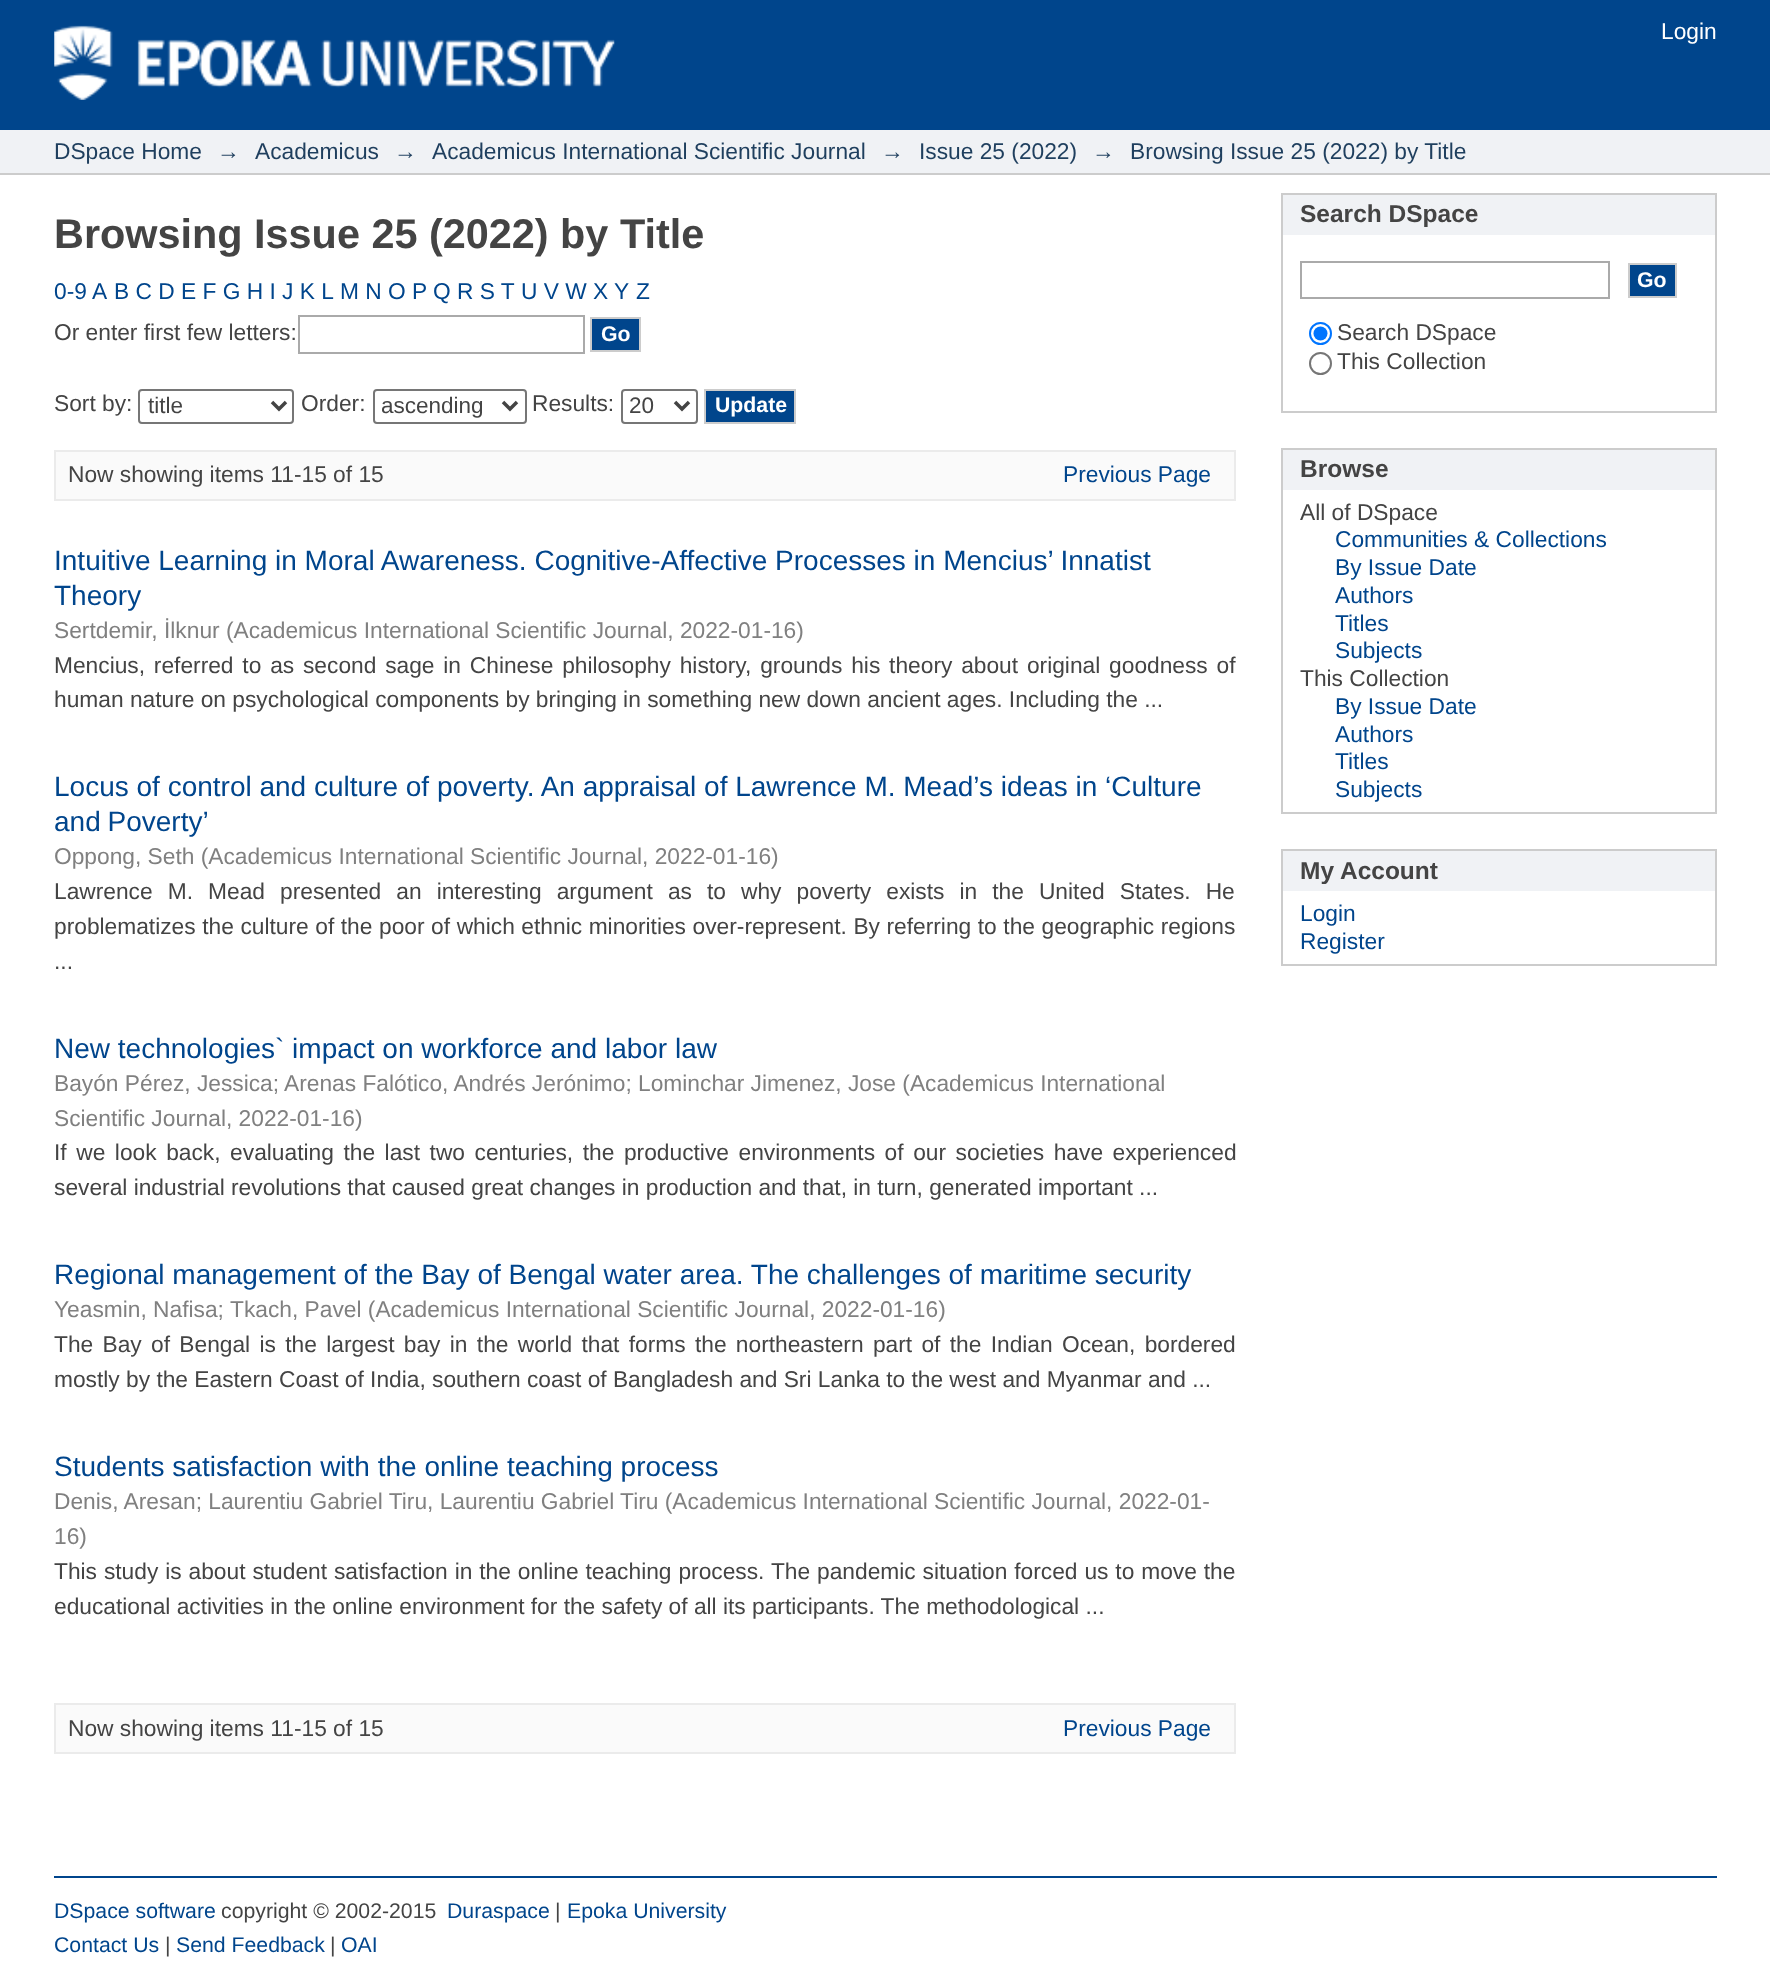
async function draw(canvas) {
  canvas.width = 1770;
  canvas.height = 1974;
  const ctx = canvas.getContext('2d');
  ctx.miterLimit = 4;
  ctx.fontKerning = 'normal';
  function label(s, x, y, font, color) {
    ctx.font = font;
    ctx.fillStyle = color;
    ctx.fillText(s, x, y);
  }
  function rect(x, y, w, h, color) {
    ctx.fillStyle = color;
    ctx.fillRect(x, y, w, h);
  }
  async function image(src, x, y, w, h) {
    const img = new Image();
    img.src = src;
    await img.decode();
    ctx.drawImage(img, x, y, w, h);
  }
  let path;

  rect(0, 0, 1770, 1974, '#fff');
  rect(0, 0, 1770, 130, '#00458c');
  await image('assets/img1.png', 54, 25, 561, 75);
  label('Login', 1661, 39, '22.75px Liberation Sans', '#fff');
  rect(0, 130, 1770, 43, '#f0f2f5');
  rect(0, 173, 1770, 2, '#ccc');
  label('DSpace Home', 54, 159, '22.75px Liberation Sans', '#1f3f5e');
  label('→', 217, 159, '22.75px Liberation Sans', '#1f3f5e');
  label('Academicus', 255, 159, '22.75px Liberation Sans', '#1f3f5e');
  label('→', 394, 159, '22.75px Liberation Sans', '#1f3f5e');
  label('Academicus International Scientific Journal', 432, 159, '22.75px Liberation Sans', '#1f3f5e');
  label('→', 881, 159, '22.75px Liberation Sans', '#1f3f5e');
  label('Issue 25 (2022)', 919, 159, '22.75px Liberation Sans', '#1f3f5e');
  label('→', 1092, 159, '22.75px Liberation Sans', '#1f3f5e');
  label('Browsing Issue 25 (2022) by Title', 1130, 159, '22.75px Liberation Sans', '#1f3f5e');
  label('Browsing Issue 25 (2022) by Title', 54, 248, 'bold 41.4px Liberation Sans', '#444');
  label('0-9 A', 54, 299, '22.75px Liberation Sans', '#00458c');
  label('B C D E F G H I J K L', 114, 299, '22.75px Liberation Sans', '#00458c');
  label('M N O P', 340, 299, '22.75px Liberation Sans', '#00458c');
  label('Q R S T', 433, 299, '22.75px Liberation Sans', '#00458c');
  label('U V W X Y', 521, 299, '22.75px Liberation Sans', '#00458c');
  label('Z', 636, 299, '22.75px Liberation Sans', '#00458c');
  label('Or enter first few letters:', 54, 340, '22.75px Liberation Sans', '#444');
  ctx.strokeStyle = '#aaa';
  ctx.lineWidth = 2;
  ctx.strokeRect(299, 316, 285, 37);
  ctx.fillStyle = '#00458c';
  ctx.beginPath();
  ctx.rect(591, 318, 49, 33);
  ctx.fill();
  ctx.strokeStyle = '#ccc';
  ctx.stroke();
  label('Go', 601, 341, 'bold 21.25px Liberation Sans', '#fff');
  label('Sort by:', 54, 411, '22.75px Liberation Sans', '#444');
  ctx.beginPath();
  ctx.roundRect(139, 390, 154, 33, 3);
  ctx.strokeStyle = '#767676';
  ctx.stroke();
  path = new Path2D('M272 402L279 409L286 402');
  ctx.strokeStyle = '#444';
  ctx.lineWidth = 3.5;
  ctx.stroke(path);
  label('title', 148, 413, '22.5px Liberation Sans', '#444');
  label('Order:', 301, 411, '22.75px Liberation Sans', '#444');
  ctx.beginPath();
  ctx.roundRect(374, 390, 152, 33, 3);
  ctx.strokeStyle = '#767676';
  ctx.lineWidth = 2;
  ctx.stroke();
  path = new Path2D('M503 402L510 409L517 402');
  ctx.strokeStyle = '#444';
  ctx.lineWidth = 3.5;
  ctx.stroke(path);
  ctx.save();
  ctx.beginPath();
  ctx.rect(382, 390, 115, 30);
  ctx.clip();
  label('ascending', 381, 413, '22.5px Liberation Sans', '#444');
  ctx.restore();
  label('Results:', 532, 411, '22.75px Liberation Sans', '#444');
  ctx.beginPath();
  ctx.roundRect(622, 390, 75, 33, 3);
  ctx.strokeStyle = '#767676';
  ctx.lineWidth = 2;
  ctx.stroke();
  path = new Path2D('M675 402L682 409L689 402');
  ctx.strokeStyle = '#444';
  ctx.lineWidth = 3.5;
  ctx.stroke(path);
  label('20', 629, 413, '22.5px Liberation Sans', '#444');
  ctx.fillStyle = '#00458c';
  ctx.beginPath();
  ctx.rect(705, 390, 90, 33);
  ctx.fill();
  ctx.strokeStyle = '#ccc';
  ctx.lineWidth = 2;
  ctx.stroke();
  label('Update', 715, 412, 'bold 21.25px Liberation Sans', '#fff');
  ctx.fillStyle = '#fafafa';
  ctx.beginPath();
  ctx.rect(55, 451, 1180, 49);
  ctx.fill();
  ctx.strokeStyle = '#ebebeb';
  ctx.stroke();
  label('Now showing items 11-15 of 15', 68, 482, '22.75px Liberation Sans', '#444');
  label('Previous Page', 1063, 482, '22.75px Liberation Sans', '#00458c');
  label('Intuitive Learning in Moral Awareness. Cognitive-Affective Processes in Mencius’ Innatist', 54, 570, '28px Liberation Sans', '#00458c');
  label('Theory', 54, 605, '28px Liberation Sans', '#00458c');
  label('Sertdemir, İlknur (Academicus International Scientific Journal, 2022-01-16)', 54, 638, '22.75px Liberation Sans', '#808080');
  ctx.wordSpacing = '2.5px';
  label('Mencius, referred to as second sage in Chinese philosophy history, grounds his theory about original goodness of', 54, 673, '22.75px Liberation Sans', '#444');
  ctx.wordSpacing = '0px';
  label('human nature on psychological components by bringing in something new down ancient ages. Including the ...', 54, 707, '22.75px Liberation Sans', '#444');
  label('Locus of control and culture of poverty. An appraisal of Lawrence M. Mead’s ideas in ‘Culture', 54, 796, '28px Liberation Sans', '#00458c');
  ctx.wordSpacing = '-1px';
  label('and Poverty’', 54, 831, '28px Liberation Sans', '#00458c');
  ctx.wordSpacing = '0px';
  label('Oppong, Seth (Academicus International Scientific Journal, 2022-01-16)', 54, 864, '22.75px Liberation Sans', '#808080');
  ctx.wordSpacing = '8.75px';
  label('Lawrence M. Mead presented an interesting argument as to why poverty exists in the United States. He', 54, 899, '22.75px Liberation Sans', '#444');
  ctx.wordSpacing = '0.25px';
  label('problematizes the culture of the poor of which ethnic minorities over-represent. By referring to the geographic regions', 54, 934, '22.75px Liberation Sans', '#444');
  ctx.wordSpacing = '0px';
  label('...', 54, 969, '22.75px Liberation Sans', '#444');
  label('New technologies` impact on workforce and labor law', 54, 1058, '28px Liberation Sans', '#00458c');
  label('Bayón Pérez, Jessica;', 54, 1091, '22.75px Liberation Sans', '#808080');
  label('Arenas Falótico, Andrés Jerónimo; Lominchar Jimenez, Jose (Academicus International', 284, 1091, '22.75px Liberation Sans', '#808080');
  label('Scientific Journal, 2022-01-16)', 54, 1126, '22.75px Liberation Sans', '#808080');
  ctx.wordSpacing = '3.25px';
  label('If we look back, evaluating the last two centuries, the productive environments of our societies have experienced', 54, 1160, '22.75px Liberation Sans', '#444');
  ctx.wordSpacing = '0px';
  label('several industrial revolutions that caused great changes in production and that, in turn, generated important ...', 54, 1195, '22.75px Liberation Sans', '#444');
  label('Regional management of the Bay of Bengal water area. The challenges of maritime security', 54, 1284, '28px Liberation Sans', '#00458c');
  label('Yeasmin, Nafisa;', 54, 1317, '22.75px Liberation Sans', '#808080');
  label('Tkach, Pavel (Academicus International Scientific Journal, 2022-01-16)', 230, 1317, '22.75px Liberation Sans', '#808080');
  ctx.wordSpacing = '3px';
  label('The Bay of Bengal is the largest bay in the world that forms the northeastern part of the Indian Ocean, bordered', 54, 1352, '22.75px Liberation Sans', '#444');
  ctx.wordSpacing = '0px';
  label('mostly by the Eastern Coast of India, southern coast of Bangladesh and Sri Lanka to the west and Myanmar and ...', 54, 1387, '22.75px Liberation Sans', '#444');
  label('Students satisfaction with the online teaching process', 54, 1476, '28px Liberation Sans', '#00458c');
  label('Denis, Aresan; Laurentiu Gabriel Tiru, Laurentiu Gabriel Tiru (Academicus International Scientific Journal, 2022-01-', 54, 1509, '22.75px Liberation Sans', '#808080');
  label('16)', 54, 1544, '22.75px Liberation Sans', '#808080');
  ctx.wordSpacing = '0.6px';
  label('This study is about student satisfaction in the online teaching process. The pandemic situation forced us to move the', 54, 1579, '22.75px Liberation Sans', '#444');
  ctx.wordSpacing = '0px';
  label('educational activities in the online environment for the safety of all its participants. The methodological ...', 54, 1614, '22.75px Liberation Sans', '#444');
  ctx.fillStyle = '#fafafa';
  ctx.beginPath();
  ctx.rect(55, 1704, 1180, 49);
  ctx.fill();
  ctx.stroke();
  label('Now showing items 11-15 of 15', 68, 1736, '22.75px Liberation Sans', '#444');
  label('Previous Page', 1063, 1736, '22.75px Liberation Sans', '#00458c');
  rect(1283, 195, 432, 40, '#f0f2f5');
  rect(1281, 193, 436, 2, '#ccc');
  rect(1715, 193, 2, 220, '#ccc');
  rect(1281, 193, 2, 42, '#ccc');
  label('Search DSpace', 1300, 222, 'bold 24.5px Liberation Sans', '#444');
  rect(1281, 411, 436, 2, '#ccc');
  rect(1281, 235, 2, 178, '#ccc');
  ctx.strokeStyle = '#aaa';
  ctx.strokeRect(1301, 262, 308, 36);
  ctx.fillStyle = '#00458c';
  ctx.beginPath();
  ctx.rect(1629, 264, 47, 33);
  ctx.fill();
  ctx.strokeStyle = '#ccc';
  ctx.stroke();
  label('Go', 1637, 287, 'bold 21.25px Liberation Sans', '#fff');
  ctx.beginPath();
  ctx.arc(1320.5, 333.5, 10.5, 0, 2 * Math.PI);
  ctx.strokeStyle = '#0075ff';
  ctx.stroke();
  ctx.fillStyle = '#0075ff';
  ctx.beginPath();
  ctx.arc(1320.5, 333.5, 7, 0, 2 * Math.PI);
  ctx.fill();
  label('Search DSpace', 1337, 340, '22.75px Liberation Sans', '#444');
  ctx.beginPath();
  ctx.arc(1320.5, 363.5, 10.5, 0, 2 * Math.PI);
  ctx.strokeStyle = '#767676';
  ctx.stroke();
  label('This Collection', 1337, 369, '22.75px Liberation Sans', '#444');
  rect(1283, 450, 432, 40, '#f0f2f5');
  rect(1281, 448, 436, 2, '#ccc');
  rect(1715, 448, 2, 366, '#ccc');
  rect(1281, 448, 2, 42, '#ccc');
  label('Browse', 1300, 477, 'bold 24.5px Liberation Sans', '#444');
  rect(1281, 812, 436, 2, '#ccc');
  rect(1281, 490, 2, 324, '#ccc');
  label('All of DSpace', 1300, 520, '22.75px Liberation Sans', '#444');
  label('Communities & Collections', 1335, 547, '22.75px Liberation Sans', '#00458c');
  label('By Issue Date', 1335, 575, '22.75px Liberation Sans', '#00458c');
  label('Authors', 1335, 603, '22.75px Liberation Sans', '#00458c');
  label('Titles', 1335, 631, '22.75px Liberation Sans', '#00458c');
  label('Subjects', 1335, 658, '22.75px Liberation Sans', '#00458c');
  label('This Collection', 1300, 686, '22.75px Liberation Sans', '#444');
  label('By Issue Date', 1335, 714, '22.75px Liberation Sans', '#00458c');
  label('Authors', 1335, 742, '22.75px Liberation Sans', '#00458c');
  label('Titles', 1335, 769, '22.75px Liberation Sans', '#00458c');
  label('Subjects', 1335, 797, '22.75px Liberation Sans', '#00458c');
  rect(1283, 851, 432, 40, '#f0f2f5');
  rect(1281, 849, 436, 2, '#ccc');
  rect(1715, 849, 2, 117, '#ccc');
  rect(1281, 849, 2, 42, '#ccc');
  label('My Account', 1300, 879, 'bold 24.5px Liberation Sans', '#444');
  rect(1281, 964, 436, 2, '#ccc');
  rect(1281, 891, 2, 75, '#ccc');
  label('Login', 1300, 921, '22.75px Liberation Sans', '#00458c');
  label('Register', 1300, 949, '22.75px Liberation Sans', '#00458c');
  rect(54, 1876, 1663, 2, '#00458c');
  label('DSpace software', 54, 1918, '21.25px Liberation Sans', '#00458c');
  label('copyright © 2002-2015', 221, 1918, '21.25px Liberation Sans', '#444');
  label('Duraspace', 447, 1918, '21.25px Liberation Sans', '#00458c');
  label('|', 555, 1918, '21.25px Liberation Sans', '#444');
  label('Epoka University', 567, 1918, '21.25px Liberation Sans', '#00458c');
  label('Contact Us', 54, 1952, '21.25px Liberation Sans', '#00458c');
  label('|', 165, 1952, '21.25px Liberation Sans', '#444');
  label('Send Feedback', 176, 1952, '21.25px Liberation Sans', '#00458c');
  label('|', 330, 1952, '21.25px Liberation Sans', '#444');
  label('OAI', 341, 1952, '21.25px Liberation Sans', '#00458c');
}

draw(document.querySelector('canvas'));
